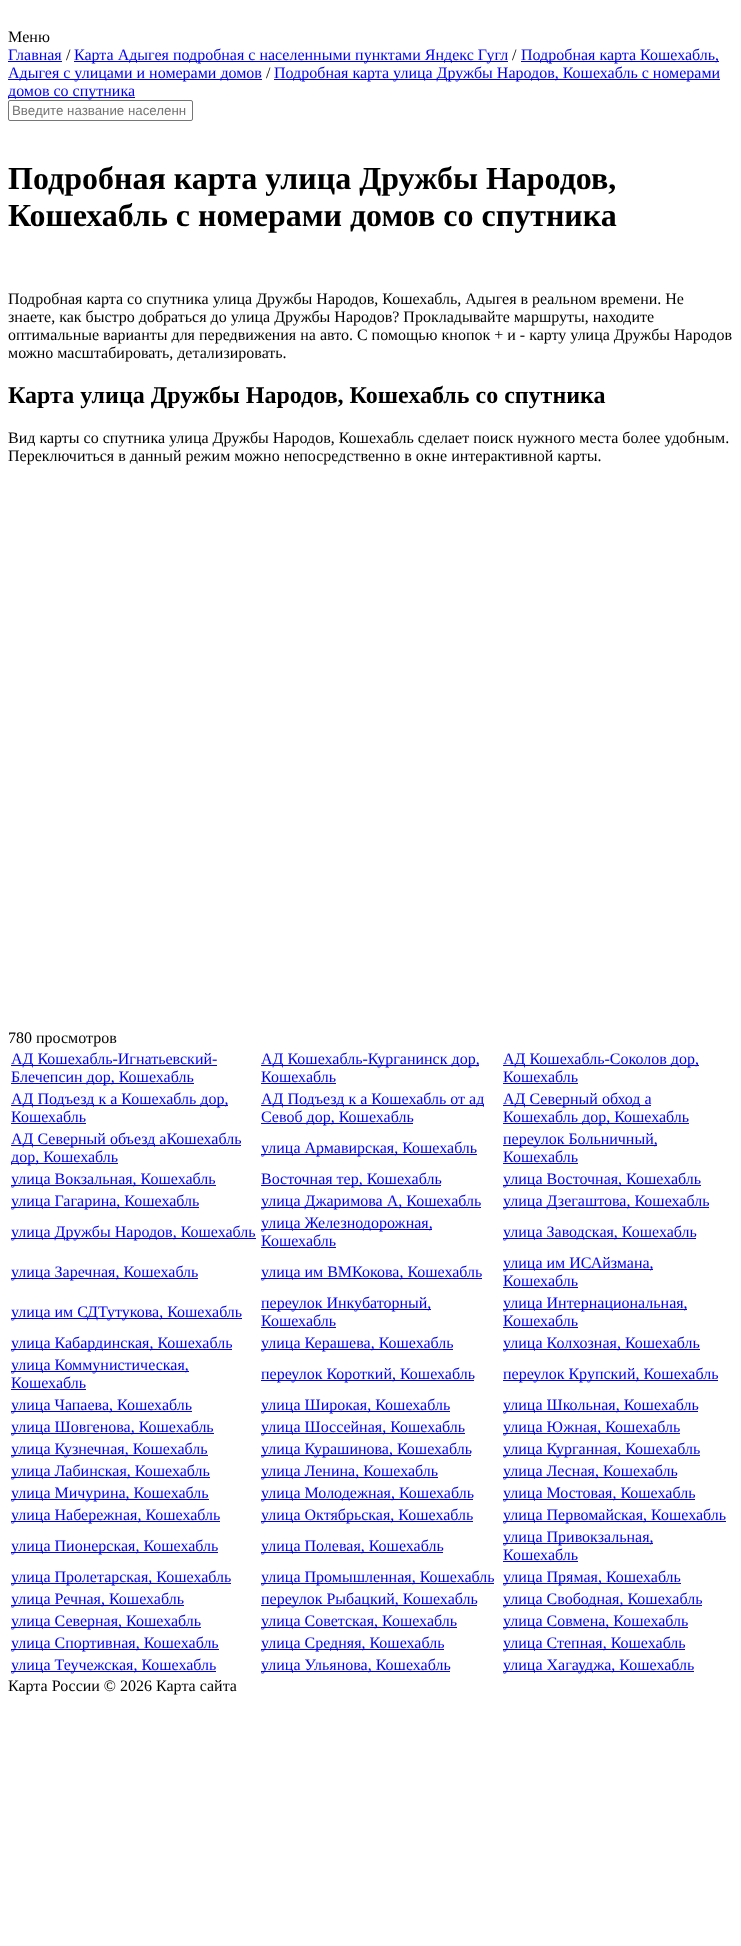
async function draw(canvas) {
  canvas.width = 741;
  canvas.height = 1946;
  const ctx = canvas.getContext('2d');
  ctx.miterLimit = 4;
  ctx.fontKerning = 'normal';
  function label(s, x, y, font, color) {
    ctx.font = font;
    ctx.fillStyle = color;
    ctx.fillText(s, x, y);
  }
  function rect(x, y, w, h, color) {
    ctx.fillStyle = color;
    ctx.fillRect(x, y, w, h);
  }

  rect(0, 0, 741, 1946, '#fff');
  label('Mеню', 8, 42, '16px Liberation Serif', '#000');
  label('Главная', 8, 60, '16px Liberation Serif', '#00e');
  rect(8, 61, 54, 1, '#00e');
  label('/', 66, 60, '16px Liberation Serif', '#000');
  rect(74, 61, 434, 1, '#00e');
  label('Карта Адыгея подробная с населенными пунктами Яндекс Гугл', 74, 60, '16px Liberation Serif', '#00e');
  label('/', 512, 60, '16px Liberation Serif', '#000');
  rect(521, 61, 198, 1, '#00e');
  label('Подробная карта Кошехабль,', 521, 60, '16px Liberation Serif', '#00e');
  rect(8, 79, 254, 1, '#00e');
  label('Адыгея с улицами и номерами домов', 8, 78, '16px Liberation Serif', '#00e');
  label('/', 266, 78, '16px Liberation Serif', '#000');
  rect(274, 79, 446, 1, '#00e');
  label('Подробная карта улица Дружбы Народов, Кошехабль с номерами', 274, 78, '16px Liberation Serif', '#00e');
  rect(8, 97, 127, 1, '#00e');
  label('домов со спутника', 8, 96, '16px Liberation Serif', '#00e');
  ctx.beginPath();
  ctx.roundRect(8.5, 100.5, 184, 20, 1.5);
  ctx.strokeStyle = '#767676';
  ctx.stroke();
  label('Введите название населенн', 12, 115, '13.3px Liberation Sans', '#757575');
  label('Подробная карта улица Дружбы Народов,', 8, 189, 'bold 32px Liberation Serif', '#000');
  label('Кошехабль с номерами домов со спутника', 8, 226, 'bold 32px Liberation Serif', '#000');
  label('Подробная карта со спутника улица Дружбы Народов, Кошехабль, Адыгея в реальном времени. Не', 8, 304, '16px Liberation Serif', '#000');
  label('знаете, как быстро добраться до улица Дружбы Народов? Прокладывайте маршруты, находите', 8, 322, '16px Liberation Serif', '#000');
  label('оптимальные варианты для передвижения на авто. С помощью кнопок + и - карту улица Дружбы Народов', 8, 340, '16px Liberation Serif', '#000');
  label('можно масштабировать, детализировать.', 8, 358, '16px Liberation Serif', '#000');
  label('Карта улица Дружбы Народов, Кошехабль со спутника', 8, 403, 'bold 24px Liberation Serif', '#000');
  label('Вид карты со спутника улица Дружбы Народов, Кошехабль сделает поиск нужного места более удобным.', 8, 443, '16px Liberation Serif', '#000');
  label('Переключиться в данный режим можно непосредственно в окне интерактивной карты.', 8, 461, '16px Liberation Serif', '#000');
  label('780 просмотров', 8, 1043, '16px Liberation Serif', '#000');
  rect(11, 1065, 206, 1, '#00e');
  label('АД Кошехабль-Игнатьевский-', 11, 1064, '16px Liberation Serif', '#00e');
  rect(11, 1083, 183, 1, '#00e');
  label('Блечепсин дор, Кошехабль', 11, 1082, '16px Liberation Serif', '#00e');
  rect(261, 1065, 218, 1, '#00e');
  label('АД Кошехабль-Курганинск дор,', 261, 1064, '16px Liberation Serif', '#00e');
  label('Кошехабль', 261, 1082, '16px Liberation Serif', '#00e');
  rect(261, 1083, 75, 1, '#00e');
  rect(503, 1065, 196, 1, '#00e');
  label('АД Кошехабль-Соколов дор,', 503, 1064, '16px Liberation Serif', '#00e');
  label('Кошехабль', 503, 1082, '16px Liberation Serif', '#00e');
  rect(503, 1083, 75, 1, '#00e');
  rect(11, 1105, 217, 1, '#00e');
  label('АД Подъезд к а Кошехабль дор,', 11, 1104, '16px Liberation Serif', '#00e');
  label('Кошехабль', 11, 1122, '16px Liberation Serif', '#00e');
  rect(11, 1123, 75, 1, '#00e');
  rect(261, 1105, 223, 1, '#00e');
  label('АД Подъезд к а Кошехабль от ад', 261, 1104, '16px Liberation Serif', '#00e');
  rect(261, 1123, 152, 1, '#00e');
  label('Севоб дор, Кошехабль', 261, 1122, '16px Liberation Serif', '#00e');
  rect(503, 1105, 148, 1, '#00e');
  label('АД Северный обход а', 503, 1104, '16px Liberation Serif', '#00e');
  rect(503, 1123, 186, 1, '#00e');
  label('Кошехабль дор, Кошехабль', 503, 1122, '16px Liberation Serif', '#00e');
  rect(11, 1145, 230, 1, '#00e');
  label('АД Северный объезд аКошехабль', 11, 1144, '16px Liberation Serif', '#00e');
  rect(11, 1163, 107, 1, '#00e');
  label('дор, Кошехабль', 11, 1162, '16px Liberation Serif', '#00e');
  rect(261, 1154, 216, 1, '#00e');
  label('улица Армавирская, Кошехабль', 261, 1153, '16px Liberation Serif', '#00e');
  rect(503, 1145, 154, 1, '#00e');
  label('переулок Больничный,', 503, 1144, '16px Liberation Serif', '#00e');
  label('Кошехабль', 503, 1162, '16px Liberation Serif', '#00e');
  rect(503, 1163, 75, 1, '#00e');
  rect(11, 1185, 205, 1, '#00e');
  label('улица Вокзальная, Кошехабль', 11, 1184, '16px Liberation Serif', '#00e');
  rect(261, 1185, 180, 1, '#00e');
  label('Восточная тер, Кошехабль', 261, 1184, '16px Liberation Serif', '#00e');
  rect(503, 1185, 198, 1, '#00e');
  label('улица Восточная, Кошехабль', 503, 1184, '16px Liberation Serif', '#00e');
  rect(11, 1207, 188, 1, '#00e');
  label('улица Гагарина, Кошехабль', 11, 1206, '16px Liberation Serif', '#00e');
  rect(261, 1207, 220, 1, '#00e');
  label('улица Джаримова А, Кошехабль', 261, 1206, '16px Liberation Serif', '#00e');
  rect(503, 1207, 206, 1, '#00e');
  label('улица Дзегаштова, Кошехабль', 503, 1206, '16px Liberation Serif', '#00e');
  rect(11, 1238, 245, 1, '#00e');
  label('улица Дружбы Народов, Кошехабль', 11, 1237, '16px Liberation Serif', '#00e');
  rect(261, 1229, 171, 1, '#00e');
  label('улица Железнодорожная,', 261, 1228, '16px Liberation Serif', '#00e');
  label('Кошехабль', 261, 1246, '16px Liberation Serif', '#00e');
  rect(261, 1247, 75, 1, '#00e');
  rect(503, 1238, 193, 1, '#00e');
  label('улица Заводская, Кошехабль', 503, 1237, '16px Liberation Serif', '#00e');
  rect(11, 1278, 187, 1, '#00e');
  label('улица Заречная, Кошехабль', 11, 1277, '16px Liberation Serif', '#00e');
  rect(261, 1278, 221, 1, '#00e');
  label('улица им ВМКокова, Кошехабль', 261, 1277, '16px Liberation Serif', '#00e');
  rect(503, 1269, 150, 1, '#00e');
  label('улица им ИСАйзмана,', 503, 1268, '16px Liberation Serif', '#00e');
  label('Кошехабль', 503, 1286, '16px Liberation Serif', '#00e');
  rect(503, 1287, 75, 1, '#00e');
  rect(11, 1318, 231, 1, '#00e');
  label('улица им СДТутукова, Кошехабль', 11, 1317, '16px Liberation Serif', '#00e');
  rect(261, 1309, 170, 1, '#00e');
  label('переулок Инкубаторный,', 261, 1308, '16px Liberation Serif', '#00e');
  label('Кошехабль', 261, 1326, '16px Liberation Serif', '#00e');
  rect(261, 1327, 75, 1, '#00e');
  rect(503, 1309, 184, 1, '#00e');
  label('улица Интернациональная,', 503, 1308, '16px Liberation Serif', '#00e');
  label('Кошехабль', 503, 1326, '16px Liberation Serif', '#00e');
  rect(503, 1327, 75, 1, '#00e');
  rect(11, 1349, 221, 1, '#00e');
  label('улица Кабардинская, Кошехабль', 11, 1348, '16px Liberation Serif', '#00e');
  rect(261, 1349, 192, 1, '#00e');
  label('улица Керашева, Кошехабль', 261, 1348, '16px Liberation Serif', '#00e');
  rect(503, 1349, 197, 1, '#00e');
  label('улица Колхозная, Кошехабль', 503, 1348, '16px Liberation Serif', '#00e');
  rect(11, 1371, 178, 1, '#00e');
  label('улица Коммунистическая,', 11, 1370, '16px Liberation Serif', '#00e');
  label('Кошехабль', 11, 1388, '16px Liberation Serif', '#00e');
  rect(11, 1389, 75, 1, '#00e');
  rect(261, 1380, 213, 1, '#00e');
  label('переулок Короткий, Кошехабль', 261, 1379, '16px Liberation Serif', '#00e');
  rect(503, 1380, 215, 1, '#00e');
  label('переулок Крупский, Кошехабль', 503, 1379, '16px Liberation Serif', '#00e');
  rect(11, 1411, 181, 1, '#00e');
  label('улица Чапаева, Кошехабль', 11, 1410, '16px Liberation Serif', '#00e');
  rect(261, 1411, 189, 1, '#00e');
  label('улица Широкая, Кошехабль', 261, 1410, '16px Liberation Serif', '#00e');
  rect(503, 1411, 195, 1, '#00e');
  label('улица Школьная, Кошехабль', 503, 1410, '16px Liberation Serif', '#00e');
  rect(11, 1433, 203, 1, '#00e');
  label('улица Шовгенова, Кошехабль', 11, 1432, '16px Liberation Serif', '#00e');
  rect(261, 1433, 204, 1, '#00e');
  label('улица Шоссейная, Кошехабль', 261, 1432, '16px Liberation Serif', '#00e');
  rect(503, 1433, 177, 1, '#00e');
  label('улица Южная, Кошехабль', 503, 1432, '16px Liberation Serif', '#00e');
  rect(11, 1455, 197, 1, '#00e');
  label('улица Кузнечная, Кошехабль', 11, 1454, '16px Liberation Serif', '#00e');
  rect(261, 1455, 210, 1, '#00e');
  label('улица Курашинова, Кошехабль', 261, 1454, '16px Liberation Serif', '#00e');
  rect(503, 1455, 197, 1, '#00e');
  label('улица Курганная, Кошехабль', 503, 1454, '16px Liberation Serif', '#00e');
  rect(11, 1477, 199, 1, '#00e');
  label('улица Лабинская, Кошехабль', 11, 1476, '16px Liberation Serif', '#00e');
  rect(261, 1477, 177, 1, '#00e');
  label('улица Ленина, Кошехабль', 261, 1476, '16px Liberation Serif', '#00e');
  rect(503, 1477, 174, 1, '#00e');
  label('улица Лесная, Кошехабль', 503, 1476, '16px Liberation Serif', '#00e');
  rect(11, 1499, 198, 1, '#00e');
  label('улица Мичурина, Кошехабль', 11, 1498, '16px Liberation Serif', '#00e');
  rect(261, 1499, 212, 1, '#00e');
  label('улица Молодежная, Кошехабль', 261, 1498, '16px Liberation Serif', '#00e');
  rect(503, 1499, 192, 1, '#00e');
  label('улица Мостовая, Кошехабль', 503, 1498, '16px Liberation Serif', '#00e');
  rect(11, 1521, 209, 1, '#00e');
  label('улица Набережная, Кошехабль', 11, 1520, '16px Liberation Serif', '#00e');
  rect(261, 1521, 212, 1, '#00e');
  label('улица Октябрьская, Кошехабль', 261, 1520, '16px Liberation Serif', '#00e');
  rect(503, 1521, 223, 1, '#00e');
  label('улица Первомайская, Кошехабль', 503, 1520, '16px Liberation Serif', '#00e');
  rect(11, 1552, 207, 1, '#00e');
  label('улица Пионерская, Кошехабль', 11, 1551, '16px Liberation Serif', '#00e');
  rect(261, 1552, 182, 1, '#00e');
  label('улица Полевая, Кошехабль', 261, 1551, '16px Liberation Serif', '#00e');
  rect(503, 1543, 150, 1, '#00e');
  label('улица Привокзальная,', 503, 1542, '16px Liberation Serif', '#00e');
  label('Кошехабль', 503, 1560, '16px Liberation Serif', '#00e');
  rect(503, 1561, 75, 1, '#00e');
  rect(11, 1583, 220, 1, '#00e');
  label('улица Пролетарская, Кошехабль', 11, 1582, '16px Liberation Serif', '#00e');
  rect(261, 1583, 233, 1, '#00e');
  label('улица Промышленная, Кошехабль', 261, 1582, '16px Liberation Serif', '#00e');
  rect(503, 1583, 178, 1, '#00e');
  label('улица Прямая, Кошехабль', 503, 1582, '16px Liberation Serif', '#00e');
  rect(11, 1605, 173, 1, '#00e');
  label('улица Речная, Кошехабль', 11, 1604, '16px Liberation Serif', '#00e');
  rect(261, 1605, 216, 1, '#00e');
  label('переулок Рыбацкий, Кошехабль', 261, 1604, '16px Liberation Serif', '#00e');
  rect(503, 1605, 199, 1, '#00e');
  label('улица Свободная, Кошехабль', 503, 1604, '16px Liberation Serif', '#00e');
  rect(11, 1627, 190, 1, '#00e');
  label('улица Северная, Кошехабль', 11, 1626, '16px Liberation Serif', '#00e');
  rect(261, 1627, 196, 1, '#00e');
  label('улица Советская, Кошехабль', 261, 1626, '16px Liberation Serif', '#00e');
  rect(503, 1627, 185, 1, '#00e');
  label('улица Совмена, Кошехабль', 503, 1626, '16px Liberation Serif', '#00e');
  rect(11, 1649, 208, 1, '#00e');
  label('улица Спортивная, Кошехабль', 11, 1648, '16px Liberation Serif', '#00e');
  rect(261, 1649, 183, 1, '#00e');
  label('улица Средняя, Кошехабль', 261, 1648, '16px Liberation Serif', '#00e');
  rect(503, 1649, 182, 1, '#00e');
  label('улица Степная, Кошехабль', 503, 1648, '16px Liberation Serif', '#00e');
  rect(11, 1671, 205, 1, '#00e');
  label('улица Теучежская, Кошехабль', 11, 1670, '16px Liberation Serif', '#00e');
  rect(261, 1671, 189, 1, '#00e');
  label('улица Ульянова, Кошехабль', 261, 1670, '16px Liberation Serif', '#00e');
  rect(503, 1671, 191, 1, '#00e');
  label('улица Хагауджа, Кошехабль', 503, 1670, '16px Liberation Serif', '#00e');
  label('Карта России © 2026 Карта сайта', 8, 1691, '16px Liberation Serif', '#000');
}

draw(document.querySelector('canvas'));
